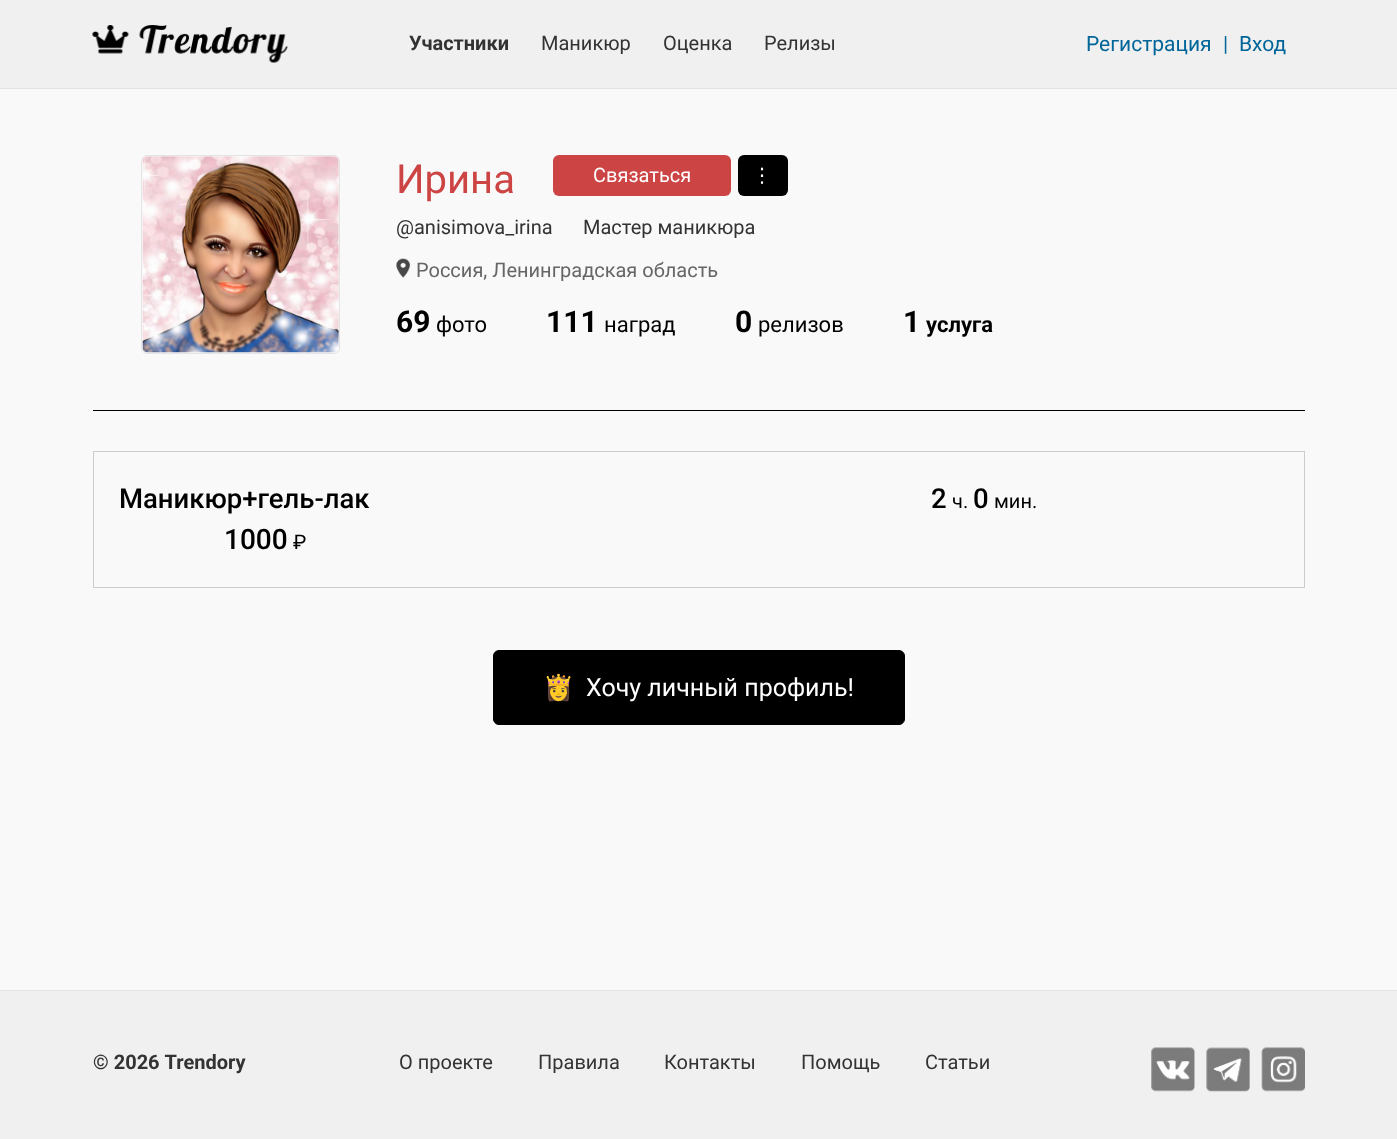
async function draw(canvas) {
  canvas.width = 1397;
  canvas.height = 1139;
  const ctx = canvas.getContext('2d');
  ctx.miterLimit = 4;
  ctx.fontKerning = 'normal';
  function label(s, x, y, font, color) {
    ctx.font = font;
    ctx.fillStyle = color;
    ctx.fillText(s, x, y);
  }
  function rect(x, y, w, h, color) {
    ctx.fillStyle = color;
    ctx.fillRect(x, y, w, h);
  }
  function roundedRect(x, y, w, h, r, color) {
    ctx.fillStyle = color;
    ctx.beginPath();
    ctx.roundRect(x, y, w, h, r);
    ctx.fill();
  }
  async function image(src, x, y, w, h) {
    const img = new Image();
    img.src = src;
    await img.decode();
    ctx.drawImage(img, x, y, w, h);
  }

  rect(0, 0, 1397, 1139, '#f9f9f9');
  rect(0, 0, 1397, 88, '#f0f0f0');
  rect(0, 88, 1397, 1, '#e4e4e4');
  await image('assets/img1.png', 92, 25, 196, 38);
  label('Участники', 409, 50, 'bold 20px Roboto', '#333');
  label('Маникюр', 541, 50, '20px Roboto', '#333');
  label('Оценка', 663, 50, '20px Roboto', '#333');
  label('Релизы', 764, 50, '20px Roboto', '#333');
  label('Регистрация', 1086, 51, '21px Roboto', '#069');
  label('|', 1223, 51, '21px Roboto', '#069');
  label('Вход', 1239, 51, '21px Roboto', '#069');
  ctx.beginPath();
  ctx.roundRect(141.5, 155.5, 198, 198, 5.5);
  ctx.strokeStyle = '#e4e4e4';
  ctx.stroke();
  await image('assets/img2.png', 142, 156, 197, 197);
  label('Ирина', 396, 193, '40px Roboto', '#c44');
  roundedRect(553, 155, 178, 41, 6, '#c44');
  label('Связаться', 593, 182, '20px Roboto', '#fff');
  roundedRect(738, 155, 50, 41, 6, '#000');
  label('⋮', 752, 182, '20px DejaVu Sans', '#fff');
  label('@anisimova_irina', 396, 234, '20px Roboto', '#333');
  label('Мастер маникюра', 583, 234, '20px Roboto', '#333');
  await image('assets/img3.png', 396, 258, 14, 20);
  label('Россия, Ленинградская область', 416, 277, '20px Roboto', '#666');
  label('69', 396, 332, 'bold 30px Roboto', '#000');
  label('фото', 436, 332, '22px Roboto', '#000');
  label('111', 546, 332, 'bold 30px Roboto', '#000');
  label('наград', 604, 332, '22px Roboto', '#000');
  label('0', 735, 332, 'bold 30px Roboto', '#000');
  label('релизов', 758, 332, '22px Roboto', '#000');
  label('1', 903, 332, 'bold 30px Roboto', '#000');
  label('услуга', 926, 332, 'bold 22px Roboto', '#000');
  rect(93, 410, 1212, 1, '#000');
  ctx.strokeStyle = '#ccc';
  ctx.strokeRect(93.5, 451.5, 1211, 136);
  label('Маникюр+гель-лак', 119, 508, '500 27.5px Roboto', '#000');
  label('2', 931, 508, '500 27.5px Roboto', '#000');
  label('ч.', 952, 508, '20px Roboto', '#000');
  label('0', 973, 508, '500 27.5px Roboto', '#000');
  label('мин.', 994, 508, '20px Roboto', '#000');
  label('1000', 224, 549, '500 28px Roboto', '#000');
  label('₽', 293, 549, '20px Roboto', '#000');
  ctx.beginPath();
  ctx.roundRect(493.5, 650.5, 411, 74, 5.5);
  ctx.fill();
  ctx.strokeStyle = '#000';
  ctx.stroke();
  label('👸', 543, 696, '25px Noto Color Emoji', '#fff');
  label('Хочу личный профиль!', 586, 696, '25px Roboto', '#fff');
  rect(0, 991, 1397, 148, '#f0f0f0');
  rect(0, 990, 1397, 1, '#e4e4e4');
  label('© 2026 Trendory', 93, 1069, 'bold 20px Roboto', '#333');
  label('О проекте', 399, 1069, '20px Roboto', '#333');
  label('Правила', 538, 1069, '20px Roboto', '#333');
  label('Контакты', 664, 1069, '20px Roboto', '#333');
  label('Помощь', 801, 1069, '20px Roboto', '#333');
  label('Статьи', 925, 1069, '20px Roboto', '#333');
  await image('assets/img4.png', 1151, 1047, 44, 45);
  await image('assets/img5.png', 1206, 1047, 44, 45);
  await image('assets/img6.png', 1261, 1047, 44, 45);
}

draw(document.querySelector('canvas'));
